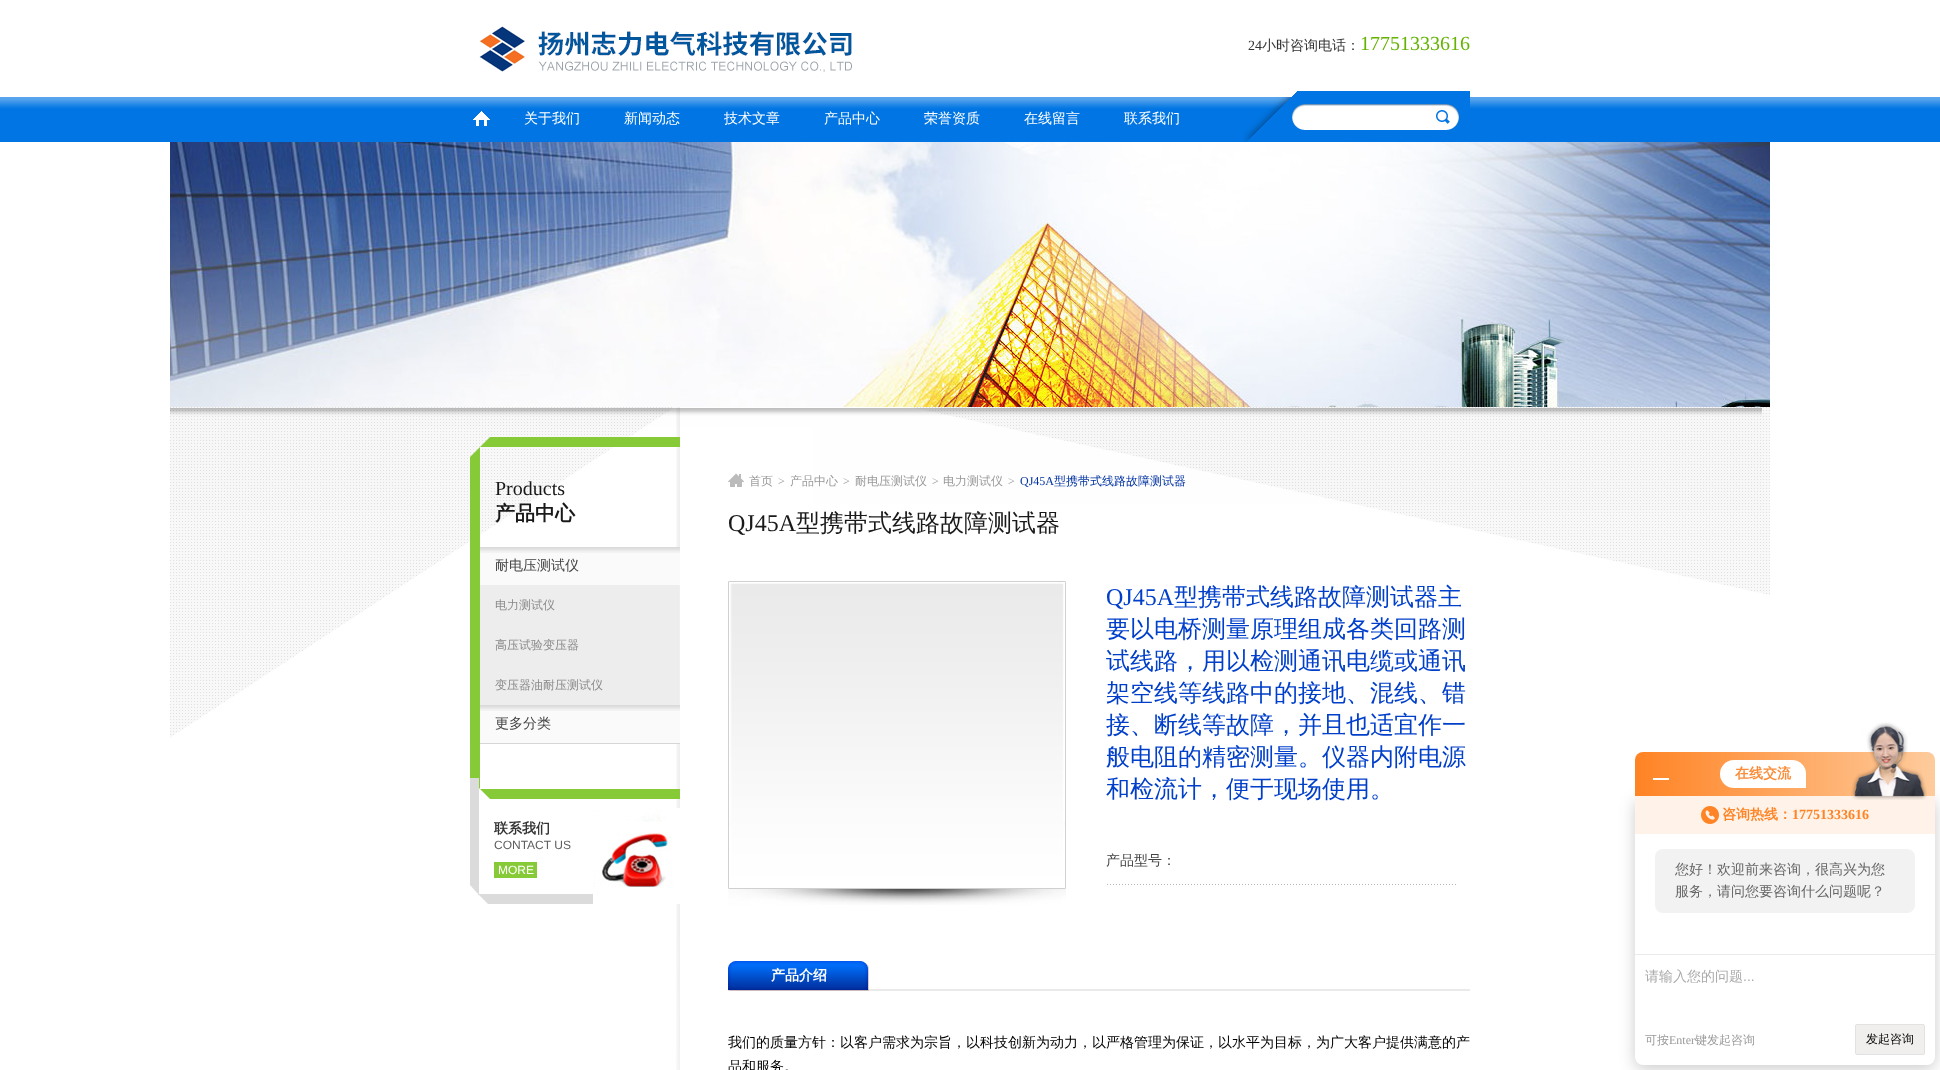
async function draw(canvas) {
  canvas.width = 1940;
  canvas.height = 1070;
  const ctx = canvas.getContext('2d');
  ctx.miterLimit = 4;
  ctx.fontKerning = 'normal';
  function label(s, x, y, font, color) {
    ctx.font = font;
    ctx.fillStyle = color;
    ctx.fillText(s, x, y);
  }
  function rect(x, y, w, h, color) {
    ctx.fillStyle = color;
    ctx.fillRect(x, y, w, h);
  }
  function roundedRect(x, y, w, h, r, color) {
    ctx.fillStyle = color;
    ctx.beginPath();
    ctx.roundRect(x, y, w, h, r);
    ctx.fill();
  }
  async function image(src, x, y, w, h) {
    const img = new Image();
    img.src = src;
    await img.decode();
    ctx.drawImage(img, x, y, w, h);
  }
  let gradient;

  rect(0, 0, 1940, 1070, '#fff');
  await image('assets/img1.png', 479, 26, 373, 47);
  label('24', 1248, 50, '14px Liberation Serif', '#333');
  label('小时咨询电话：', 1262, 50, '500 14px WenQuanYi Zen Hei', '#333');
  label('17751333616', 1360, 50, '20px Liberation Serif', '#63b300');
  await image('assets/img2.png', 0, 97, 1940, 45);
  await image('assets/img3.png', 473, 111, 17, 15);
  label('关于我们', 524, 123, '500 14px WenQuanYi Zen Hei', '#fff');
  label('新闻动态', 624, 123, '500 14px WenQuanYi Zen Hei', '#fff');
  label('技术文章', 724, 123, '500 14px WenQuanYi Zen Hei', '#fff');
  label('产品中心', 824, 123, '500 14px WenQuanYi Zen Hei', '#fff');
  label('荣誉资质', 924, 123, '500 14px WenQuanYi Zen Hei', '#fff');
  label('在线留言', 1024, 123, '500 14px WenQuanYi Zen Hei', '#fff');
  label('联系我们', 1124, 123, '500 14px WenQuanYi Zen Hei', '#fff');
  await image('assets/img4.png', 1243, 91, 227, 51);
  await image('assets/img5.png', 170, 142, 1600, 265);
  await image('assets/img6.png', 170, 407, 1600, 331);
  await image('assets/img12.png', 676, 407, 4, 663);
  await image('assets/img7.png', 470, 744, 210, 55);
  await image('assets/img8.png', 470, 437, 210, 110);
  label('Products', 495, 495, '20px Liberation Serif', '#191919');
  label('产品中心', 495, 520, 'bold 20px WenQuanYi Zen Hei', '#191919');
  rect(470, 547, 10, 197, '#86ca37');
  rect(480, 743, 200, 1, '#d6d6d6');
  rect(480, 553, 200, 32, '#fafafa');
  await image('assets/img9.png', 480, 547, 200, 6);
  label('耐电压测试仪', 495, 570, '500 14px WenQuanYi Zen Hei', '#434343');
  rect(480, 585, 199, 120, '#ededed');
  label('电力测试仪', 495, 609, '500 12px WenQuanYi Zen Hei', '#8a8a8a');
  label('高压试验变压器', 495, 649, '500 12px WenQuanYi Zen Hei', '#8a8a8a');
  label('变压器油耐压测试仪', 495, 689, '500 12px WenQuanYi Zen Hei', '#8a8a8a');
  rect(480, 711, 200, 32, '#fafafa');
  await image('assets/img9.png', 480, 705, 200, 6);
  label('更多分类', 495, 728, '500 14px WenQuanYi Zen Hei', '#434343');
  await image('assets/img10.png', 470, 778, 123, 126);
  await image('assets/img11.png', 593, 808, 87, 96);
  label('联系我们', 494, 833, 'bold 14px WenQuanYi Zen Hei', '#333');
  label('CONTACT US', 494, 849, '12px Liberation Sans', '#5d5d5d');
  rect(494, 862, 43, 16, '#86ca37');
  label('MORE', 498, 874, '12px Liberation Sans', '#fff');
  await image('assets/img13.png', 728, 473, 16, 14);
  label('首页', 749, 485, '500 12px WenQuanYi Zen Hei', '#999');
  label('>', 778, 485, '12px Liberation Serif', '#999');
  label('产品中心', 790, 485, '500 12px WenQuanYi Zen Hei', '#999');
  label('>', 843, 485, '12px Liberation Serif', '#999');
  label('耐电压测试仪', 855, 485, '500 12px WenQuanYi Zen Hei', '#999');
  label('>', 932, 485, '12px Liberation Serif', '#999');
  label('电力测试仪', 943, 485, '500 12px WenQuanYi Zen Hei', '#999');
  label('>', 1008, 485, '12px Liberation Serif', '#999');
  label('QJ45A', 1020, 485, '12px Liberation Serif', '#0032a1');
  label('型携带式线路故障测试器', 1054, 485, '500 12px WenQuanYi Zen Hei', '#0032a1');
  label('QJ45A', 728, 531, '24px Liberation Serif', '#191919');
  label('型携带式线路故障测试器', 796, 531, '500 24px WenQuanYi Zen Hei', '#191919');
  await image('assets/img14.png', 728, 581, 338, 324);
  label('QJ45A', 1106, 605, '24px Liberation Serif', '#003fca');
  label('型携带式线路故障测试器主', 1174, 605, '500 24px WenQuanYi Zen Hei', '#003fca');
  label('要以电桥测量原理组成各类回路测', 1106, 637, '500 24px WenQuanYi Zen Hei', '#003fca');
  label('试线路，用以检测通讯电缆或通讯', 1106, 669, '500 24px WenQuanYi Zen Hei', '#003fca');
  label('架空线等线路中的接地、混线、错', 1106, 701, '500 24px WenQuanYi Zen Hei', '#003fca');
  label('接、断线等故障，并且也适宜作一', 1106, 733, '500 24px WenQuanYi Zen Hei', '#003fca');
  label('般电阻的精密测量。仪器内附电源', 1106, 765, '500 24px WenQuanYi Zen Hei', '#003fca');
  label('和检流计，便于现场使用。', 1106, 797, '500 24px WenQuanYi Zen Hei', '#003fca');
  label('产品型号：', 1106, 865, '500 14px WenQuanYi Zen Hei', '#434343');
  await image('assets/img15.png', 1107, 884, 349, 1);
  rect(869, 989, 601, 2, '#eaeaea');
  await image('assets/img16.png', 728, 961, 141, 30);
  label('产品介绍', 771, 980, 'bold 14px WenQuanYi Zen Hei', '#fff');
  label('我们的质量方针：以客户需求为宗旨，以科技创新为动力，以严格管理为保证，以水平为目标，为广大客户提供满意的产', 728, 1047, '500 14px WenQuanYi Zen Hei', '#000');
  label('品和服务。', 728, 1071, '500 14px WenQuanYi Zen Hei', '#000');
  ctx.fillStyle = '#00000033';
  ctx.filter = 'blur(8px)';
  ctx.beginPath();
  ctx.roundRect(1635, 800, 300, 269, 8);
  ctx.fill();
  ctx.filter = 'none';
  gradient = ctx.createLinearGradient(1635, 774, 1935, 774);
  gradient.addColorStop(0, '#ff8324');
  gradient.addColorStop(1, '#fecb9c');
  ctx.fillStyle = gradient;
  ctx.beginPath();
  ctx.roundRect(1635, 752, 300, 44, [8, 8, 0, 0]);
  ctx.fill();
  rect(1653, 778, 16, 2, '#fff');
  ctx.beginPath();
  ctx.roundRect(1720, 760, 86, 28, [14, 14, 0, 14]);
  ctx.fill();
  label('在线交流', 1735, 778, 'bold 14px WenQuanYi Zen Hei', '#fb8b36');
  ctx.fillStyle = '#fff';
  ctx.beginPath();
  ctx.roundRect(1635, 796, 300, 269, [0, 0, 8, 8]);
  ctx.fill();
  rect(1635, 796, 300, 38, '#fff3e9');
  await image('assets/img17.png', 1851, 722, 76, 78);
  await image('assets/img18.png', 1701, 806, 18, 18);
  label('咨询热线：', 1722, 819, 'bold 14px WenQuanYi Zen Hei', '#ff8426');
  label('17751333616', 1792, 819, 'bold 14px Liberation Serif', '#ff8426');
  roundedRect(1655, 849, 260, 64, 8, '#f2f2f2');
  label('您好！欢迎前来咨询，很高兴为您', 1675, 874, '500 14px WenQuanYi Zen Hei', '#666');
  label('服务，请问您要咨询什么问题呢？', 1675, 896, '500 14px WenQuanYi Zen Hei', '#666');
  rect(1635, 954, 300, 1, '#eaeaea');
  label('请输入您的问题', 1645, 981, '500 14px WenQuanYi Zen Hei', '#aaa');
  label('...', 1743, 981, '14px Liberation Sans', '#aaa');
  label('可按', 1645, 1044, '500 12px WenQuanYi Zen Hei', '#999');
  label('Enter', 1669, 1044, '12px Liberation Serif', '#999');
  label('键发起咨询', 1695, 1044, '500 12px WenQuanYi Zen Hei', '#999');
  ctx.fillStyle = '#f0efed';
  ctx.beginPath();
  ctx.roundRect(1855.5, 1024.5, 69, 30, 1.5);
  ctx.fill();
  ctx.strokeStyle = '#e2e2e2';
  ctx.stroke();
  label('发起咨询', 1866, 1043, '500 12px WenQuanYi Zen Hei', '#000');
}

draw(document.querySelector('canvas'));
